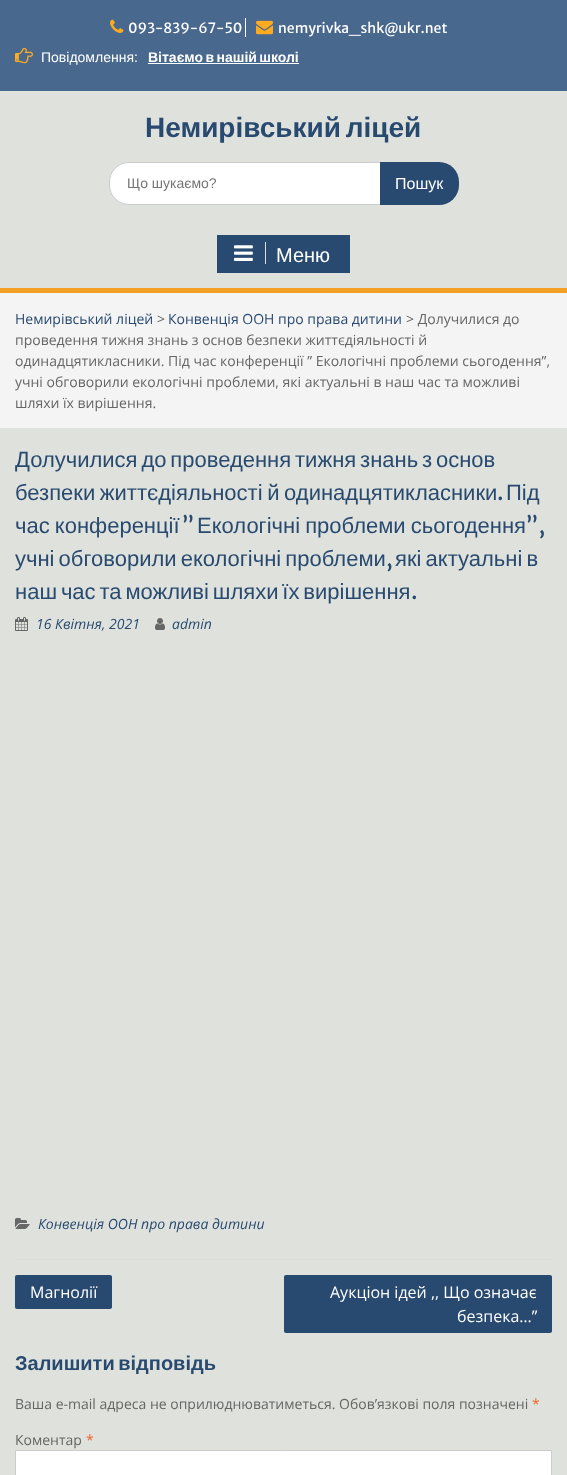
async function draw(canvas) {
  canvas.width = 567;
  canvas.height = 1475;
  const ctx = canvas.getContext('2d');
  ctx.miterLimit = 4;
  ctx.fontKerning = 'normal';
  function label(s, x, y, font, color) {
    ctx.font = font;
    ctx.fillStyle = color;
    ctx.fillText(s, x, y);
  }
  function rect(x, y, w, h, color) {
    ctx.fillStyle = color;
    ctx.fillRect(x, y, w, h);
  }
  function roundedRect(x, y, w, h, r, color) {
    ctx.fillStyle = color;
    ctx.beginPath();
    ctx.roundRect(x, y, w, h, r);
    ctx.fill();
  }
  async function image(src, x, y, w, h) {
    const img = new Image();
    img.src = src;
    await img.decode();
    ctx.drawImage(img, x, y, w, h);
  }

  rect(0, 0, 567, 1475, '#dfe2dc');
  rect(0, 0, 567, 91, '#49688e');
  await image('assets/img1.png', 110, 19, 14, 14);
  label('093-839-67-50', 128, 33, '14px Merriweather Sans', '#fff');
  rect(245, 18, 1, 19, '#fff');
  await image('assets/img2.png', 256, 20, 17, 15);
  label('nemyrivka_shk@ukr.net', 278, 33, '14px Merriweather Sans', '#fff');
  await image('assets/img3.png', 15, 47, 18, 17);
  label('Повідомлення:', 41, 62, '14px Liberation Sans', '#fff');
  ctx.wordSpacing = '-1.5px';
  label('Вітаємо в нашій школі', 148, 62, 'bold 14px Liberation Sans', '#fff');
  rect(148, 63, 151, 1, '#fff');
  ctx.wordSpacing = '-3px';
  label('Немирівський ліцей', 145, 137, 'bold 28px Liberation Sans', '#294a70');
  ctx.fillStyle = '#fff';
  ctx.beginPath();
  ctx.roundRect(109.5, 162.5, 349, 42, 19.5);
  ctx.fill();
  ctx.strokeStyle = '#ccc';
  ctx.stroke();
  ctx.wordSpacing = '0px';
  label('Що шукаємо?', 127, 188, '14px Liberation Sans', '#757575');
  ctx.fillStyle = '#294a70';
  ctx.beginPath();
  ctx.roundRect(380, 162, 79, 43, [0, 20, 20, 0]);
  ctx.fill();
  label('Пошук', 395, 189, '16px Liberation Sans', '#fff');
  rect(0, 288, 567, 5, '#f4a024');
  rect(217, 235, 133, 38, '#294a70');
  rect(265, 242, 1, 22, '#ddd');
  await image('assets/img4.png', 234, 245, 19, 16);
  label('Меню', 276, 262, '20px Liberation Sans', '#fff');
  rect(0, 293, 567, 135, '#f4f4f4');
  label('Немирівський ліцей', 15, 324, '14px Open Sans', '#294a70');
  label('>', 157, 324, '14px Open Sans', '#666');
  label('Конвенція ООН про права дитини', 168, 324, '14px Open Sans', '#294a70');
  label('> Долучилися до', 406, 324, '14px Open Sans', '#666');
  label('проведення тижня знань з основ безпеки життєдіяльності й', 15, 345, '14px Open Sans', '#666');
  label('одинадцятикласники. Під час конференції ” Екологічні проблеми сьогодення”,', 15, 366, '14px Open Sans', '#666');
  label('учні обговорили екологічні проблеми, які актуальні в наш час та можливі', 15, 387, '14px Open Sans', '#666');
  label('шляхи їх вирішення.', 15, 408, '14px Open Sans', '#666');
  rect(15, 1259, 537, 1, '#ddd');
  ctx.wordSpacing = '-2.25px';
  label('Долучилися до проведення тижня знань з основ', 15, 467, '22px Liberation Sans', '#294a70');
  ctx.wordSpacing = '-1.5px';
  label('безпеки життєдіяльності й одинадцятикласники', 15, 500, '22px Liberation Sans', '#294a70');
  ctx.wordSpacing = '0px';
  label('.', 497, 500, '22px Merriweather Sans', '#294a70');
  label('Під', 506, 500, '22px Liberation Sans', '#294a70');
  ctx.wordSpacing = '-1px';
  label('час конференції', 15, 533, '22px Liberation Sans', '#294a70');
  ctx.wordSpacing = '0px';
  label('”', 182, 533, '22px Merriweather Sans', '#294a70');
  ctx.wordSpacing = '-1px';
  label('Екологічні проблеми сьогодення', 197, 533, '22px Liberation Sans', '#294a70');
  ctx.wordSpacing = '0px';
  label('”,', 526, 533, '22px Merriweather Sans', '#294a70');
  ctx.wordSpacing = '-2px';
  label('учні обговорили екологічні проблеми', 15, 566, '22px Liberation Sans', '#294a70');
  ctx.wordSpacing = '0px';
  label(',', 386, 566, '22px Merriweather Sans', '#294a70');
  ctx.wordSpacing = '-2px';
  label('які актуальні в', 395, 566, '22px Liberation Sans', '#294a70');
  ctx.wordSpacing = '-2.25px';
  label('наш час та можливі шляхи їх вирішення', 15, 599, '22px Liberation Sans', '#294a70');
  ctx.wordSpacing = '0px';
  label('.', 411, 599, '22px Merriweather Sans', '#294a70');
  await image('assets/img5.png', 15, 617, 13, 14);
  label('16 Квітня, 2021', 36, 629, 'italic 14px Open Sans', '#294a70');
  await image('assets/img6.png', 155, 618, 10, 12);
  label('admin', 172, 629, 'italic 14px Open Sans', '#294a70');
  await image('assets/img7.png', 15, 1218, 15, 11);
  label('Конвенція ООН про права дитини', 38, 1229, 'italic 14px Open Sans', '#294a70');
  roundedRect(15, 1275, 97, 34, 2, '#294a70');
  label('Магнолії', 30, 1298, '16px Open Sans', '#fff');
  roundedRect(284, 1275, 268, 58, 2, '#294a70');
  label('Аукціон ідей ,, Що означає', 330, 1298, '16px Open Sans', '#fff');
  label('безпека…”', 457, 1322, '16px Open Sans', '#fff');
  ctx.wordSpacing = '-2px';
  label('Залишити відповідь', 15, 1370, 'bold 20px Liberation Sans', '#294a70');
  ctx.wordSpacing = '0px';
  label('Ваша e-mail адреса не оприлюднюватиметься. Обов’язкові поля позначені', 15, 1409, '14px Open Sans', '#666');
  label('*', 532, 1409, '14px Open Sans', '#f0632b');
  label('Коментар', 15, 1445, '14px Open Sans', '#666');
  label('*', 86, 1445, '14px Open Sans', '#f0632b');
  ctx.fillStyle = '#fff';
  ctx.beginPath();
  ctx.rect(15.5, 1450.5, 536, 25);
  ctx.fill();
  ctx.stroke();
}

draw(document.querySelector('canvas'));
